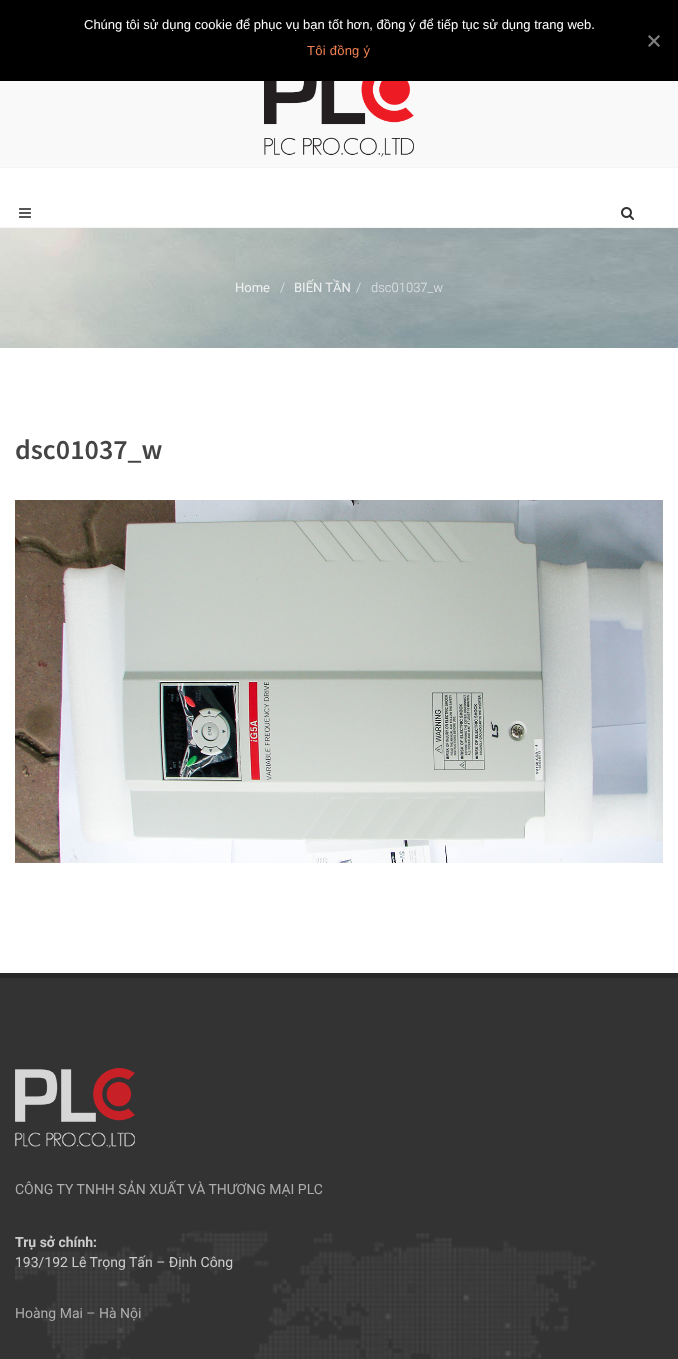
async function draw(canvas) {
  canvas.width = 678;
  canvas.height = 1359;
  const ctx = canvas.getContext('2d');
  ctx.miterLimit = 4;
  ctx.fontKerning = 'normal';
  function label(s, x, y, font, color) {
    ctx.font = font;
    ctx.fillStyle = color;
    ctx.fillText(s, x, y);
  }
  function rect(x, y, w, h, color) {
    ctx.fillStyle = color;
    ctx.fillRect(x, y, w, h);
  }
  async function image(src, x, y, w, h) {
    const img = new Image();
    img.src = src;
    await img.decode();
    ctx.drawImage(img, x, y, w, h);
  }
  let path;

  rect(0, 0, 678, 1359, '#fff');
  rect(0, 0, 678, 81, '#000');
  label('Chúng tôi sử dụng cookie để phục vụ bạn tốt hơn, đồng ý để tiếp tục sử dụng trang web.', 84, 29, '13px Liberation Sans', '#fff');
  ctx.fillStyle = '#808080';
  path = new Path2D('M658.5 35L660 36.5L649.5 47L648 45.5Z');
  ctx.fill(path);
  path = new Path2D('M648 36.5L649.5 35L660 45.5L658.5 47Z');
  ctx.fill(path);
  ctx.letterSpacing = '0.25px';
  label('Tôi đồng ý', 307, 55, '13px Liberation Sans', '#f18052');
  rect(0, 81, 678, 86, '#f9f9f9');
  rect(0, 227, 678, 1, '#f5f5f5');
  await image('assets/img1.png', 264, 81, 150, 76);
  rect(0, 167, 678, 1, '#f5f5f5');
  await image('assets/img2.png', 19, 208, 12, 10);
  await image('assets/img3.png', 621, 207, 13, 13);
  await image('assets/img4.png', 0, 228, 678, 120);
  ctx.letterSpacing = '0px';
  label('Home', 235, 292, '13px Roboto', '#eef0f0');
  label('/', 280, 292, '300 13px Roboto', '#e3e7e7');
  label('BIẾN TẦN', 294, 292, '13px Roboto', '#eef0f0');
  label('/', 356, 292, '300 13px Roboto', '#e3e7e7');
  label('dsc01037_w', 371, 292, '300 13px Roboto', '#e3e7e7');
  label('dsc01037_w', 15, 459, '600 28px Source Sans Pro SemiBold', '#444');
  await image('assets/img5.png', 15, 500, 648, 363);
  rect(0, 978, 678, 381, '#333');
  rect(0, 973, 678, 5, '#292929');
  await image('assets/img6.png', 15, 1068, 120, 80);
  label('CÔNG TY TNHH SẢN XUẤT VÀ THƯƠNG MẠI PLC', 15, 1194, '14px Roboto', '#adadad');
  await image('assets/img7.png', 15, 1231, 581, 128);
  label('Trụ sở chính:', 15, 1247, 'bold 14px Roboto', '#ccc');
  label('193/192 Lê Trọng Tấn – Định Công', 15, 1267, '14px Roboto', '#ccc');
  label('Hoàng Mai – Hà Nội', 15, 1318, '14px Roboto', '#adadad');
}

draw(document.querySelector('canvas'));
